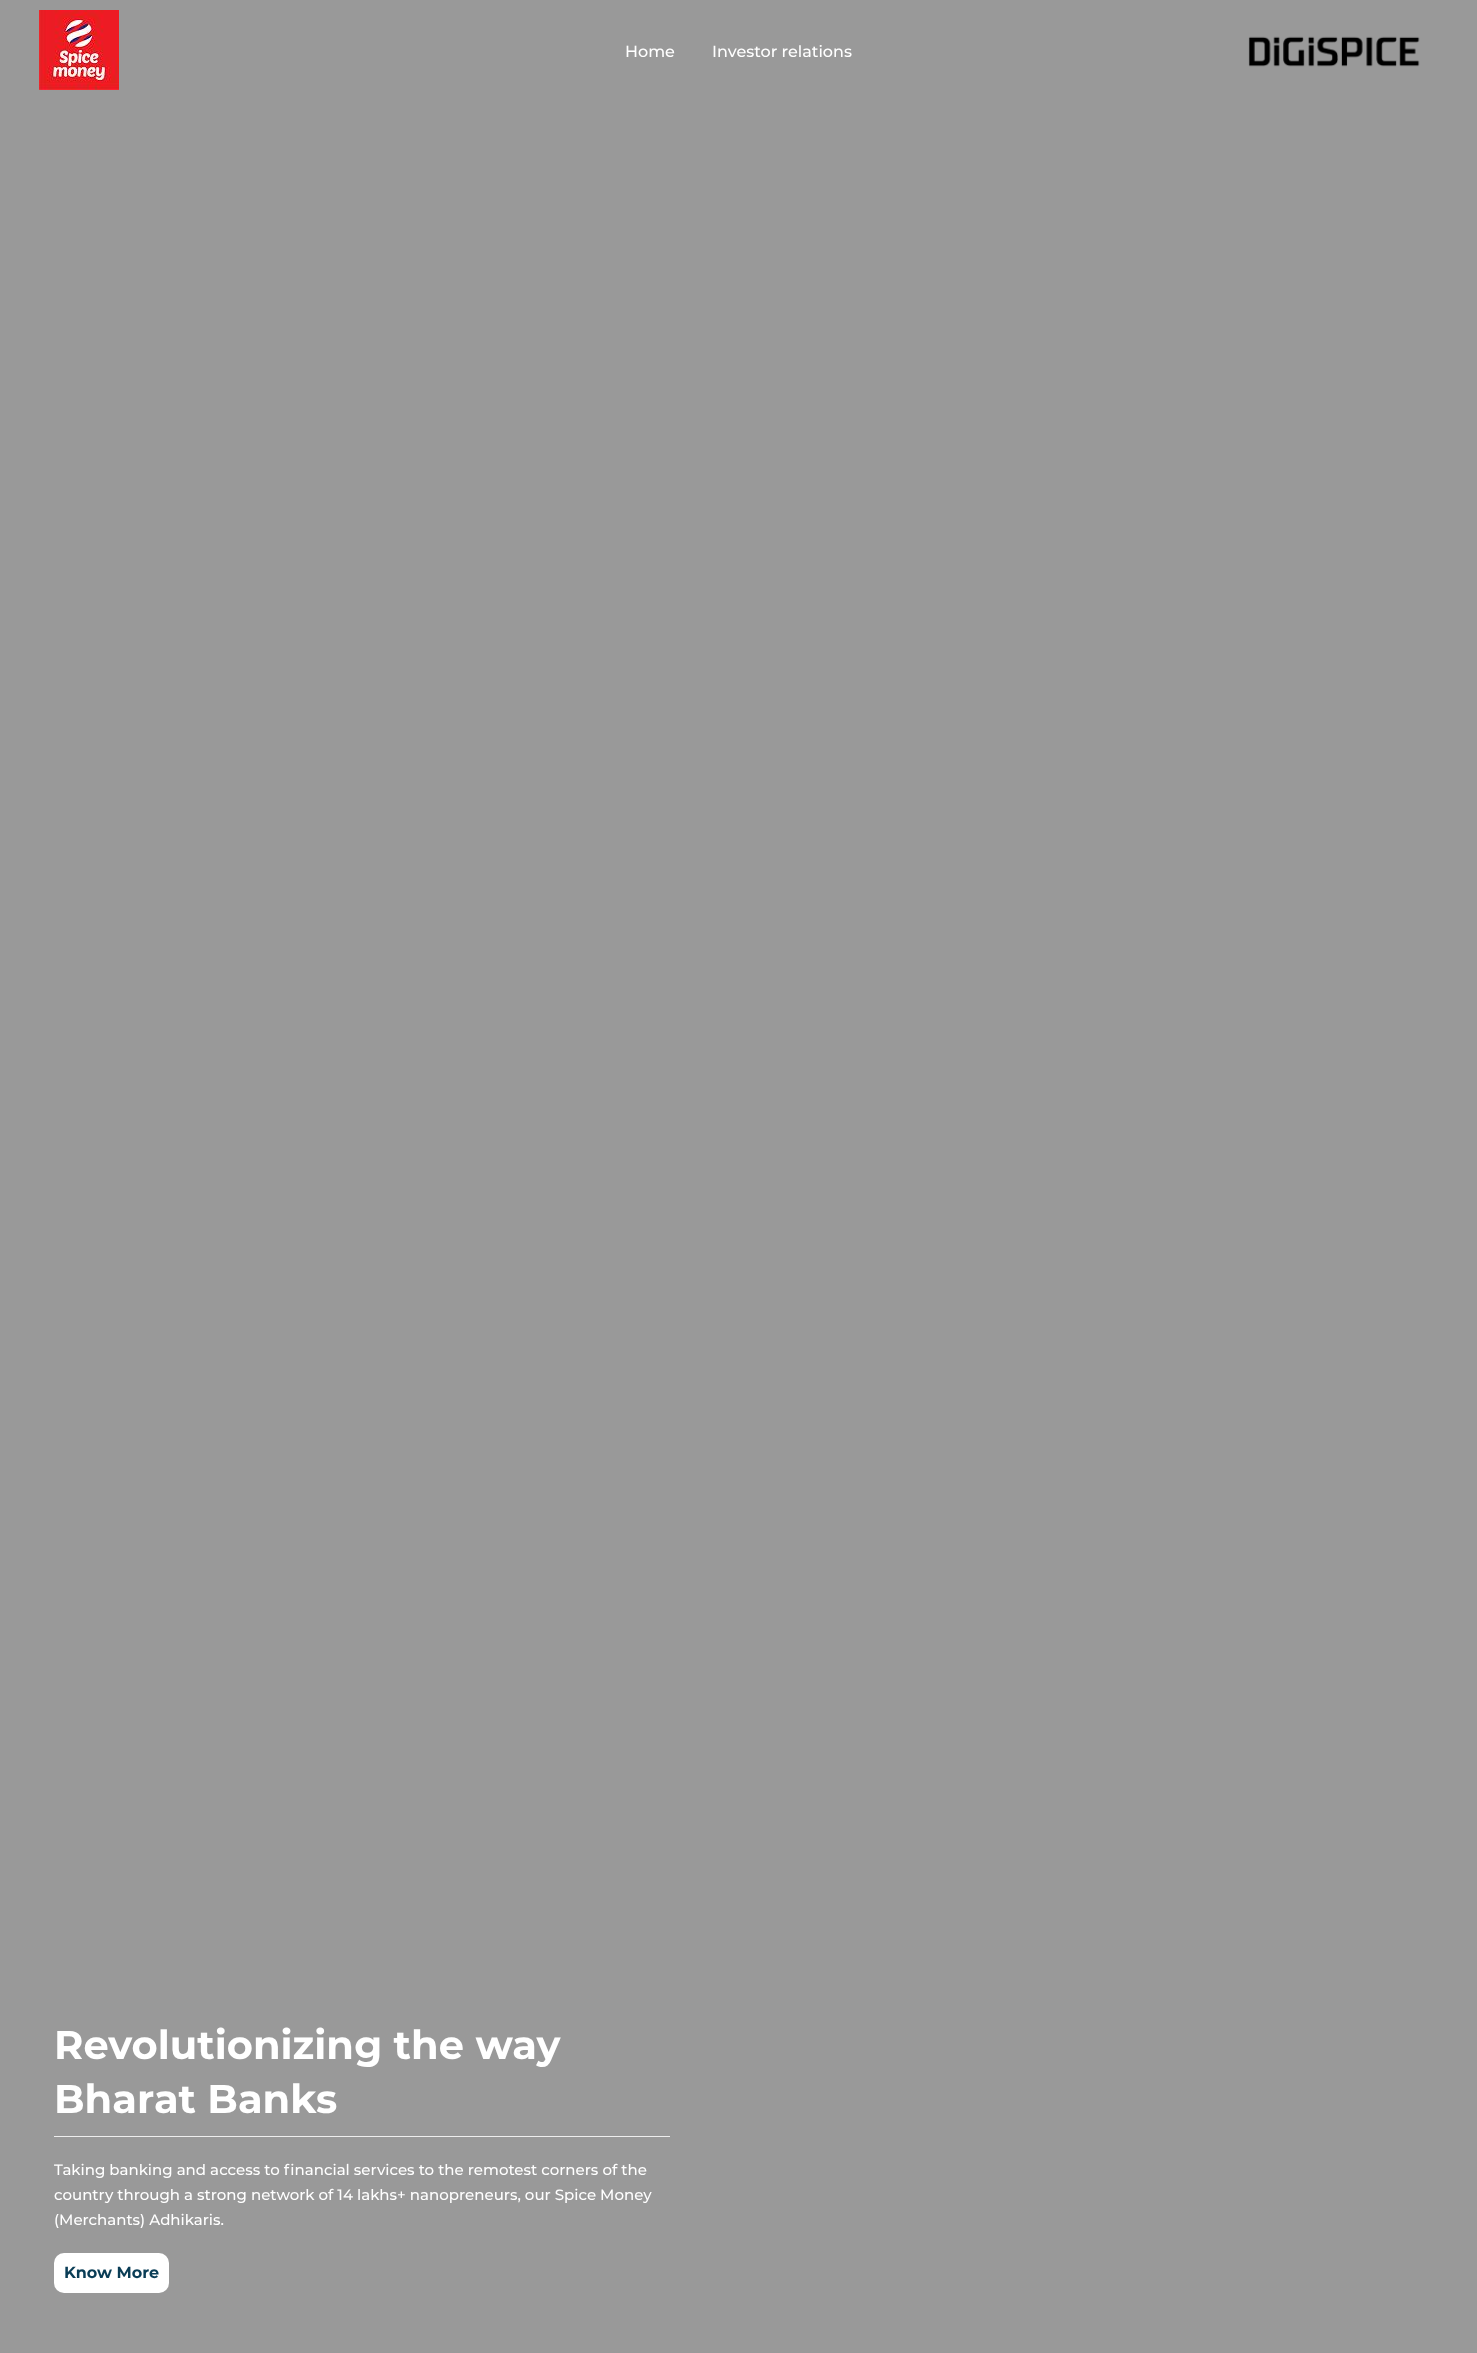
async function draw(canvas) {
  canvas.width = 1477;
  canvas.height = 2353;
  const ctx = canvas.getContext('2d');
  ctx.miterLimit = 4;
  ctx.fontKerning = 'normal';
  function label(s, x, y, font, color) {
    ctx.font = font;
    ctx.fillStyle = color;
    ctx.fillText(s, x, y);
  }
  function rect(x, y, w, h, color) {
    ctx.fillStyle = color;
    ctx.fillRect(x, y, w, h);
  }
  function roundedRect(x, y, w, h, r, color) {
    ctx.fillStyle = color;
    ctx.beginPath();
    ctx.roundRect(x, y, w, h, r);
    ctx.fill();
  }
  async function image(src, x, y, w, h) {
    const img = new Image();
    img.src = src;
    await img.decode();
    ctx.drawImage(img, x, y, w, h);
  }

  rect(0, 0, 1477, 2353, '#999');
  await image('assets/img1.png', 39, 10, 80, 80);
  label('Home', 625, 57, '500 16px Montserrat', '#fff');
  label('Investor relations', 712, 57, '500 16px Montserrat', '#fff');
  await image('assets/img2.png', 1248, 36, 172, 31);
  rect(54, 2136, 616, 1, '#eee');
  label('Revolutionizing the way', 54, 2059, 'bold 40px Montserrat', '#fff');
  label('Bharat Banks', 54, 2113, 'bold 40px Montserrat', '#fff');
  label('Taking banking and access to financial services to the remotest corners of the', 54, 2175, '500 15px Montserrat', '#fff');
  label('country through a strong network of 14 lakhs+ nanopreneurs, our Spice Money', 54, 2200, '500 15px Montserrat', '#fff');
  label('(Merchants) Adhikaris.', 54, 2225, '500 15px Montserrat', '#fff');
  roundedRect(54, 2253, 115, 40, 10, '#fff');
  label('Know More', 64, 2278, 'bold 16px Montserrat', '#0a3d56');
}

draw(document.querySelector('canvas'));
